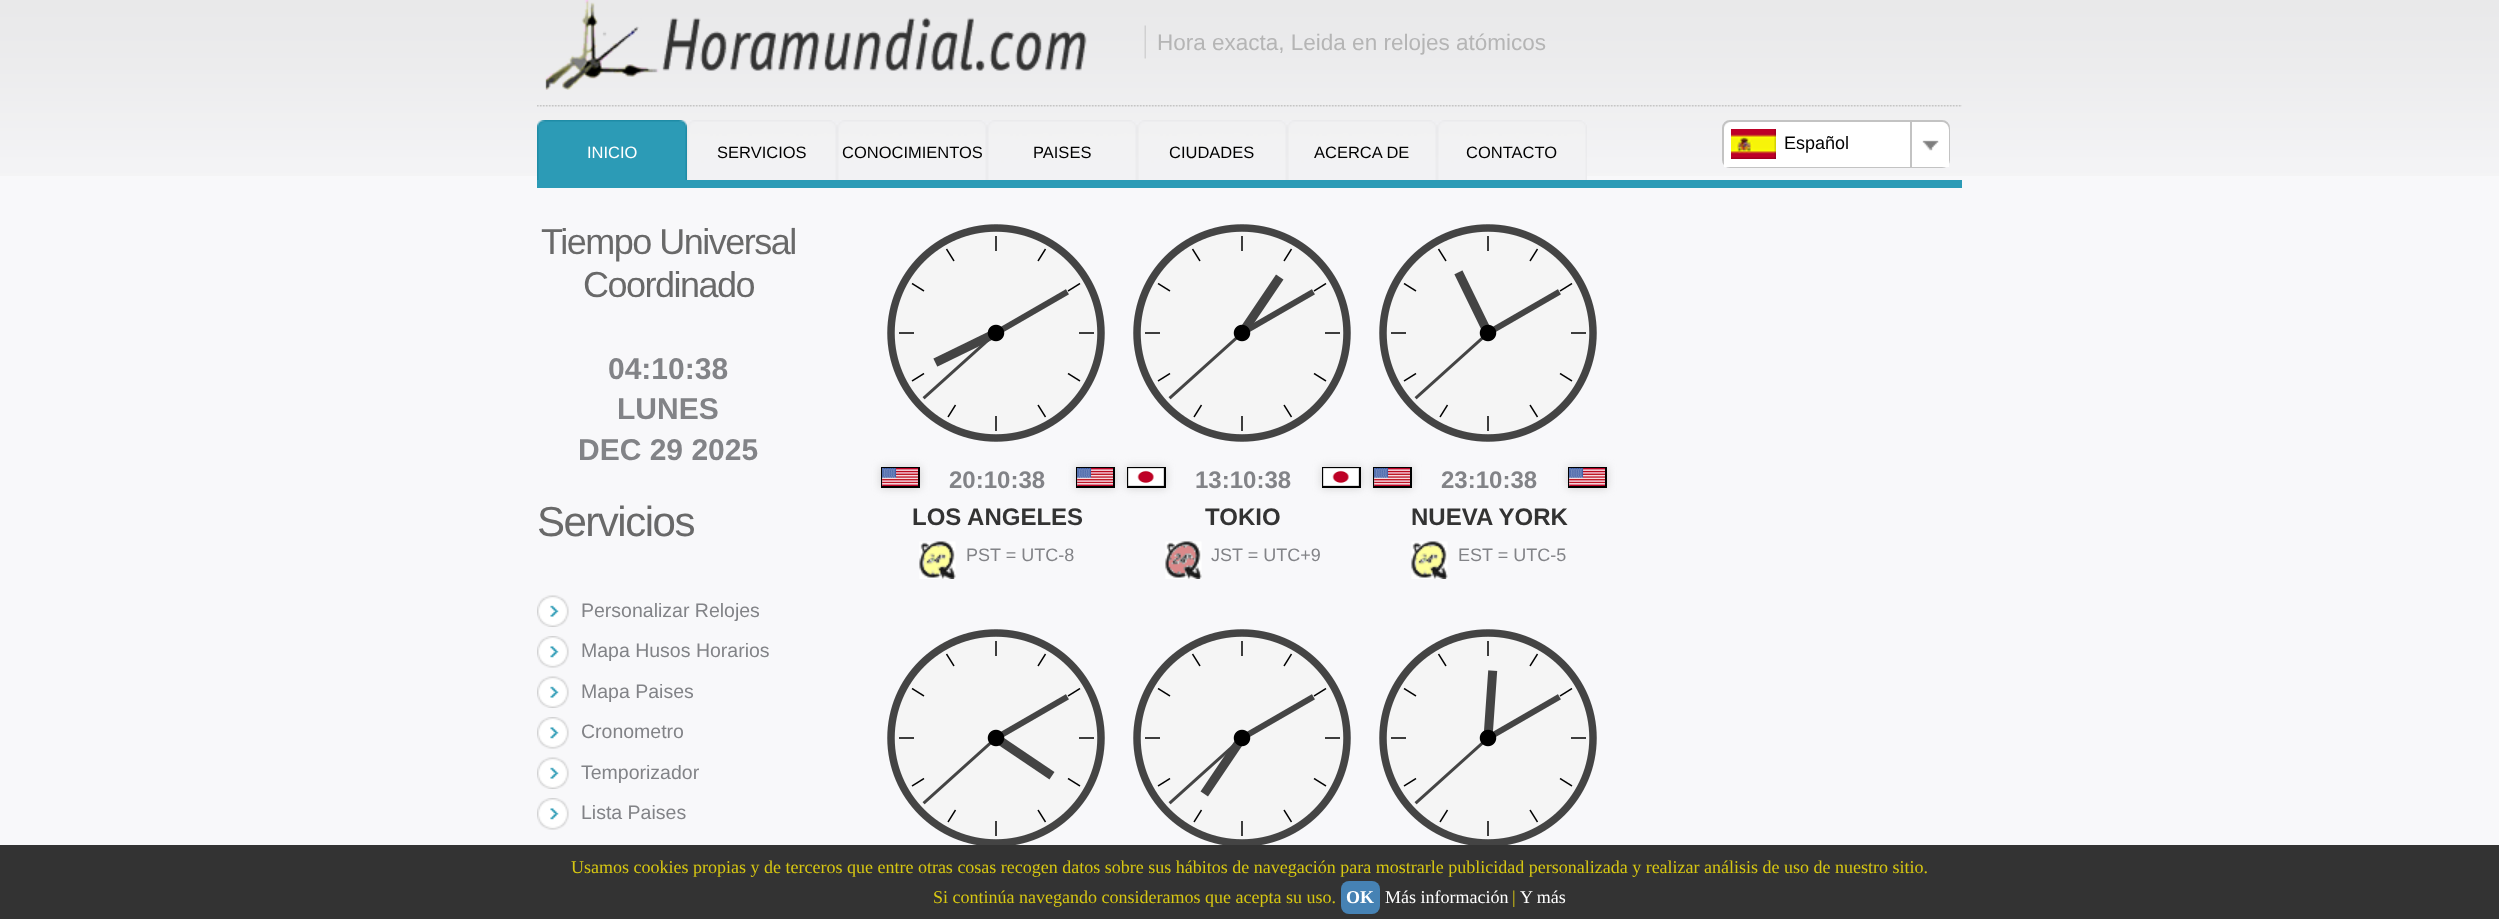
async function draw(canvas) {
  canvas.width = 2499;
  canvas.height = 919;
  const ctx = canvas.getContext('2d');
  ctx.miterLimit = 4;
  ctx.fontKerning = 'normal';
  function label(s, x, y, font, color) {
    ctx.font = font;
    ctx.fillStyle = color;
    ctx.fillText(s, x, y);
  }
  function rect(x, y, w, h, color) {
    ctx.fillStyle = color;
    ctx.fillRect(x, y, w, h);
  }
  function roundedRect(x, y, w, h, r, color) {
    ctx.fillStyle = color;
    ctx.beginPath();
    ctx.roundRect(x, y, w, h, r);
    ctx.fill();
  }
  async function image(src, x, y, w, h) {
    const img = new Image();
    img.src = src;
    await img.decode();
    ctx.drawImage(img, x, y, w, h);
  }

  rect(0, 0, 2499, 919, '#f8f8fa');
  await image('assets/img1.png', 0, 0, 2499, 176);
  rect(537, 180, 1425, 8, '#2c9bb6');
  await image('assets/img2.png', 537, 105, 1425, 2);
  await image('assets/img3.png', 545, 0, 542, 90);
  await image('assets/img4.png', 1144, 25, 2, 34);
  label('Hora exacta, Leida en relojes atómicos', 1157, 50, '22.5px Liberation Sans', '#b5b5b5');
  await image('assets/img5.png', 537, 120, 150, 60);
  label('INICIO', 587, 158, '16.5px Liberation Sans', '#fff');
  await image('assets/img6.png', 687, 120, 150, 60);
  label('SERVICIOS', 717, 158, '16.5px Liberation Sans', '#000');
  await image('assets/img6.png', 837, 120, 150, 60);
  label('CONOCIMIENTOS', 842, 158, '16.5px Liberation Sans', '#000');
  await image('assets/img6.png', 987, 120, 150, 60);
  label('PAISES', 1033, 158, '16.5px Liberation Sans', '#000');
  await image('assets/img7.png', 1137, 120, 150, 60);
  label('CIUDADES', 1169, 158, '16.5px Liberation Sans', '#000');
  await image('assets/img7.png', 1287, 120, 150, 60);
  label('ACERCA DE', 1314, 158, '16.5px Liberation Sans', '#000');
  await image('assets/img8.png', 1437, 120, 150, 60);
  label('CONTACTO', 1466, 158, '16.5px Liberation Sans', '#000');
  ctx.beginPath();
  ctx.roundRect(1723, 121, 226, 46, 7);
  ctx.strokeStyle = '#c3c3c3';
  ctx.lineWidth = 2;
  ctx.stroke();
  ctx.fillStyle = '#fff';
  ctx.beginPath();
  ctx.roundRect(1724, 122, 225, 45, [8, 8, 0, 0]);
  ctx.fill();
  await image('assets/img9.png', 1731, 129, 45, 30);
  label('Español', 1784, 149, '18px Liberation Sans', '#000');
  rect(1910, 122, 2, 45, '#c3c3c3');
  await image('assets/img10.png', 1922, 140, 17, 11);
  rect(0, 845, 2499, 74, '#333');
  label('Usamos cookies propias y de terceros que entre otras cosas recogen datos sobre sus hábitos de navegación para mostrarle publicidad personalizada y realizar análisis de uso de nuestro sitio.', 571, 873, '18px Liberation Serif', '#d7c712');
  label('Si continúa navegando consideramos que acepta su uso.', 933, 903, '18px Liberation Serif', '#d7c712');
  roundedRect(1341, 881, 39, 33, 8, '#4682b4');
  label('OK', 1346, 903, 'bold 18px Liberation Serif', '#fff');
  label('Más información', 1385, 903, '18px Liberation Serif', '#fff');
  label('|', 1512, 903, '18px Liberation Serif', '#d7c712');
  label('Y más', 1520, 903, '18px Liberation Serif', '#fff');
  ctx.letterSpacing = '-1.5px';
  label('Tiempo Universal', 541, 254, '36px Liberation Sans', '#696969');
  label('Coordinado', 583, 297, '36px Liberation Sans', '#696969');
  ctx.letterSpacing = '0px';
  label('04:10:38', 608, 379, 'bold 30px Liberation Sans', '#828387');
  label('LUNES', 617, 419, 'bold 30px Liberation Sans', '#828387');
  label('DEC 29 2025', 578, 460, 'bold 30px Liberation Sans', '#828387');
  ctx.letterSpacing = '-1.5px';
  label('Servicios', 537, 536, '42px Liberation Sans', '#696969');
  await image('assets/img11.png', 537, 595, 32, 32);
  ctx.letterSpacing = '0px';
  label('Personalizar Relojes', 581, 617, '19.5px Liberation Sans', '#828387');
  await image('assets/img12.png', 537, 636, 32, 32);
  label('Mapa Husos Horarios', 581, 657, '19.5px Liberation Sans', '#828387');
  await image('assets/img11.png', 537, 676, 32, 32);
  label('Mapa Paises', 581, 698, '19.5px Liberation Sans', '#828387');
  await image('assets/img12.png', 537, 717, 32, 32);
  label('Cronometro', 581, 738, '19.5px Liberation Sans', '#828387');
  await image('assets/img11.png', 537, 757, 32, 32);
  label('Temporizador', 581, 779, '19.5px Liberation Sans', '#828387');
  await image('assets/img12.png', 537, 798, 32, 32);
  label('Lista Paises', 581, 819, '19.5px Liberation Sans', '#828387');
  await image('assets/img13.png', 887, 224, 218, 218);
  ctx.fillStyle = '#ccc';
  ctx.filter = 'blur(4.5px)';
  ctx.beginPath();
  ctx.rect(881, 467, 39, 21);
  ctx.fill();
  ctx.filter = 'none';
  ctx.strokeStyle = '#000';
  ctx.strokeRect(882, 468, 37, 19);
  await image('assets/img14.png', 882, 468, 36, 18);
  label('20:10:38', 949, 488, 'bold 24px Liberation Sans', '#828387');
  ctx.fillStyle = '#ccc';
  ctx.filter = 'blur(4.5px)';
  ctx.beginPath();
  ctx.rect(1076, 467, 39, 21);
  ctx.fill();
  ctx.filter = 'none';
  ctx.strokeRect(1077, 468, 37, 19);
  await image('assets/img15.png', 1077, 468, 36, 18);
  label('LOS ANGELES', 912, 525, 'bold 24px Liberation Sans', '#333');
  await image('assets/img16.png', 919, 541, 37, 38);
  label('PST = UTC-8', 966, 561, '18px Liberation Sans', '#828387');
  await image('assets/img17.png', 1133, 224, 218, 218);
  ctx.fillStyle = '#ccc';
  ctx.filter = 'blur(4.5px)';
  ctx.beginPath();
  ctx.rect(1127, 467, 39, 21);
  ctx.fill();
  ctx.filter = 'none';
  ctx.strokeRect(1128, 468, 37, 19);
  await image('assets/img18.png', 1128, 468, 36, 18);
  label('13:10:38', 1195, 488, 'bold 24px Liberation Sans', '#828387');
  ctx.fillStyle = '#ccc';
  ctx.filter = 'blur(4.5px)';
  ctx.beginPath();
  ctx.rect(1322, 467, 39, 21);
  ctx.fill();
  ctx.filter = 'none';
  ctx.strokeRect(1323, 468, 37, 19);
  await image('assets/img18.png', 1323, 468, 36, 18);
  label('TOKIO', 1205, 525, 'bold 24px Liberation Sans', '#333');
  await image('assets/img19.png', 1165, 541, 37, 38);
  label('JST = UTC+9', 1211, 561, '18px Liberation Sans', '#828387');
  await image('assets/img20.png', 1379, 224, 218, 218);
  ctx.fillStyle = '#ccc';
  ctx.filter = 'blur(4.5px)';
  ctx.beginPath();
  ctx.rect(1373, 467, 39, 21);
  ctx.fill();
  ctx.filter = 'none';
  ctx.strokeRect(1374, 468, 37, 19);
  await image('assets/img14.png', 1374, 468, 36, 18);
  label('23:10:38', 1441, 488, 'bold 24px Liberation Sans', '#828387');
  ctx.fillStyle = '#ccc';
  ctx.filter = 'blur(4.5px)';
  ctx.beginPath();
  ctx.rect(1568, 467, 39, 21);
  ctx.fill();
  ctx.filter = 'none';
  ctx.strokeRect(1569, 468, 37, 19);
  await image('assets/img15.png', 1569, 468, 36, 18);
  label('NUEVA YORK', 1411, 525, 'bold 24px Liberation Sans', '#333');
  await image('assets/img21.png', 1411, 541, 37, 38);
  label('EST = UTC-5', 1458, 561, '18px Liberation Sans', '#828387');
  await image('assets/img22.png', 887, 629, 218, 216);
  await image('assets/img23.png', 1133, 629, 218, 216);
  await image('assets/img24.png', 1379, 629, 218, 216);
}

draw(document.querySelector('canvas'));
